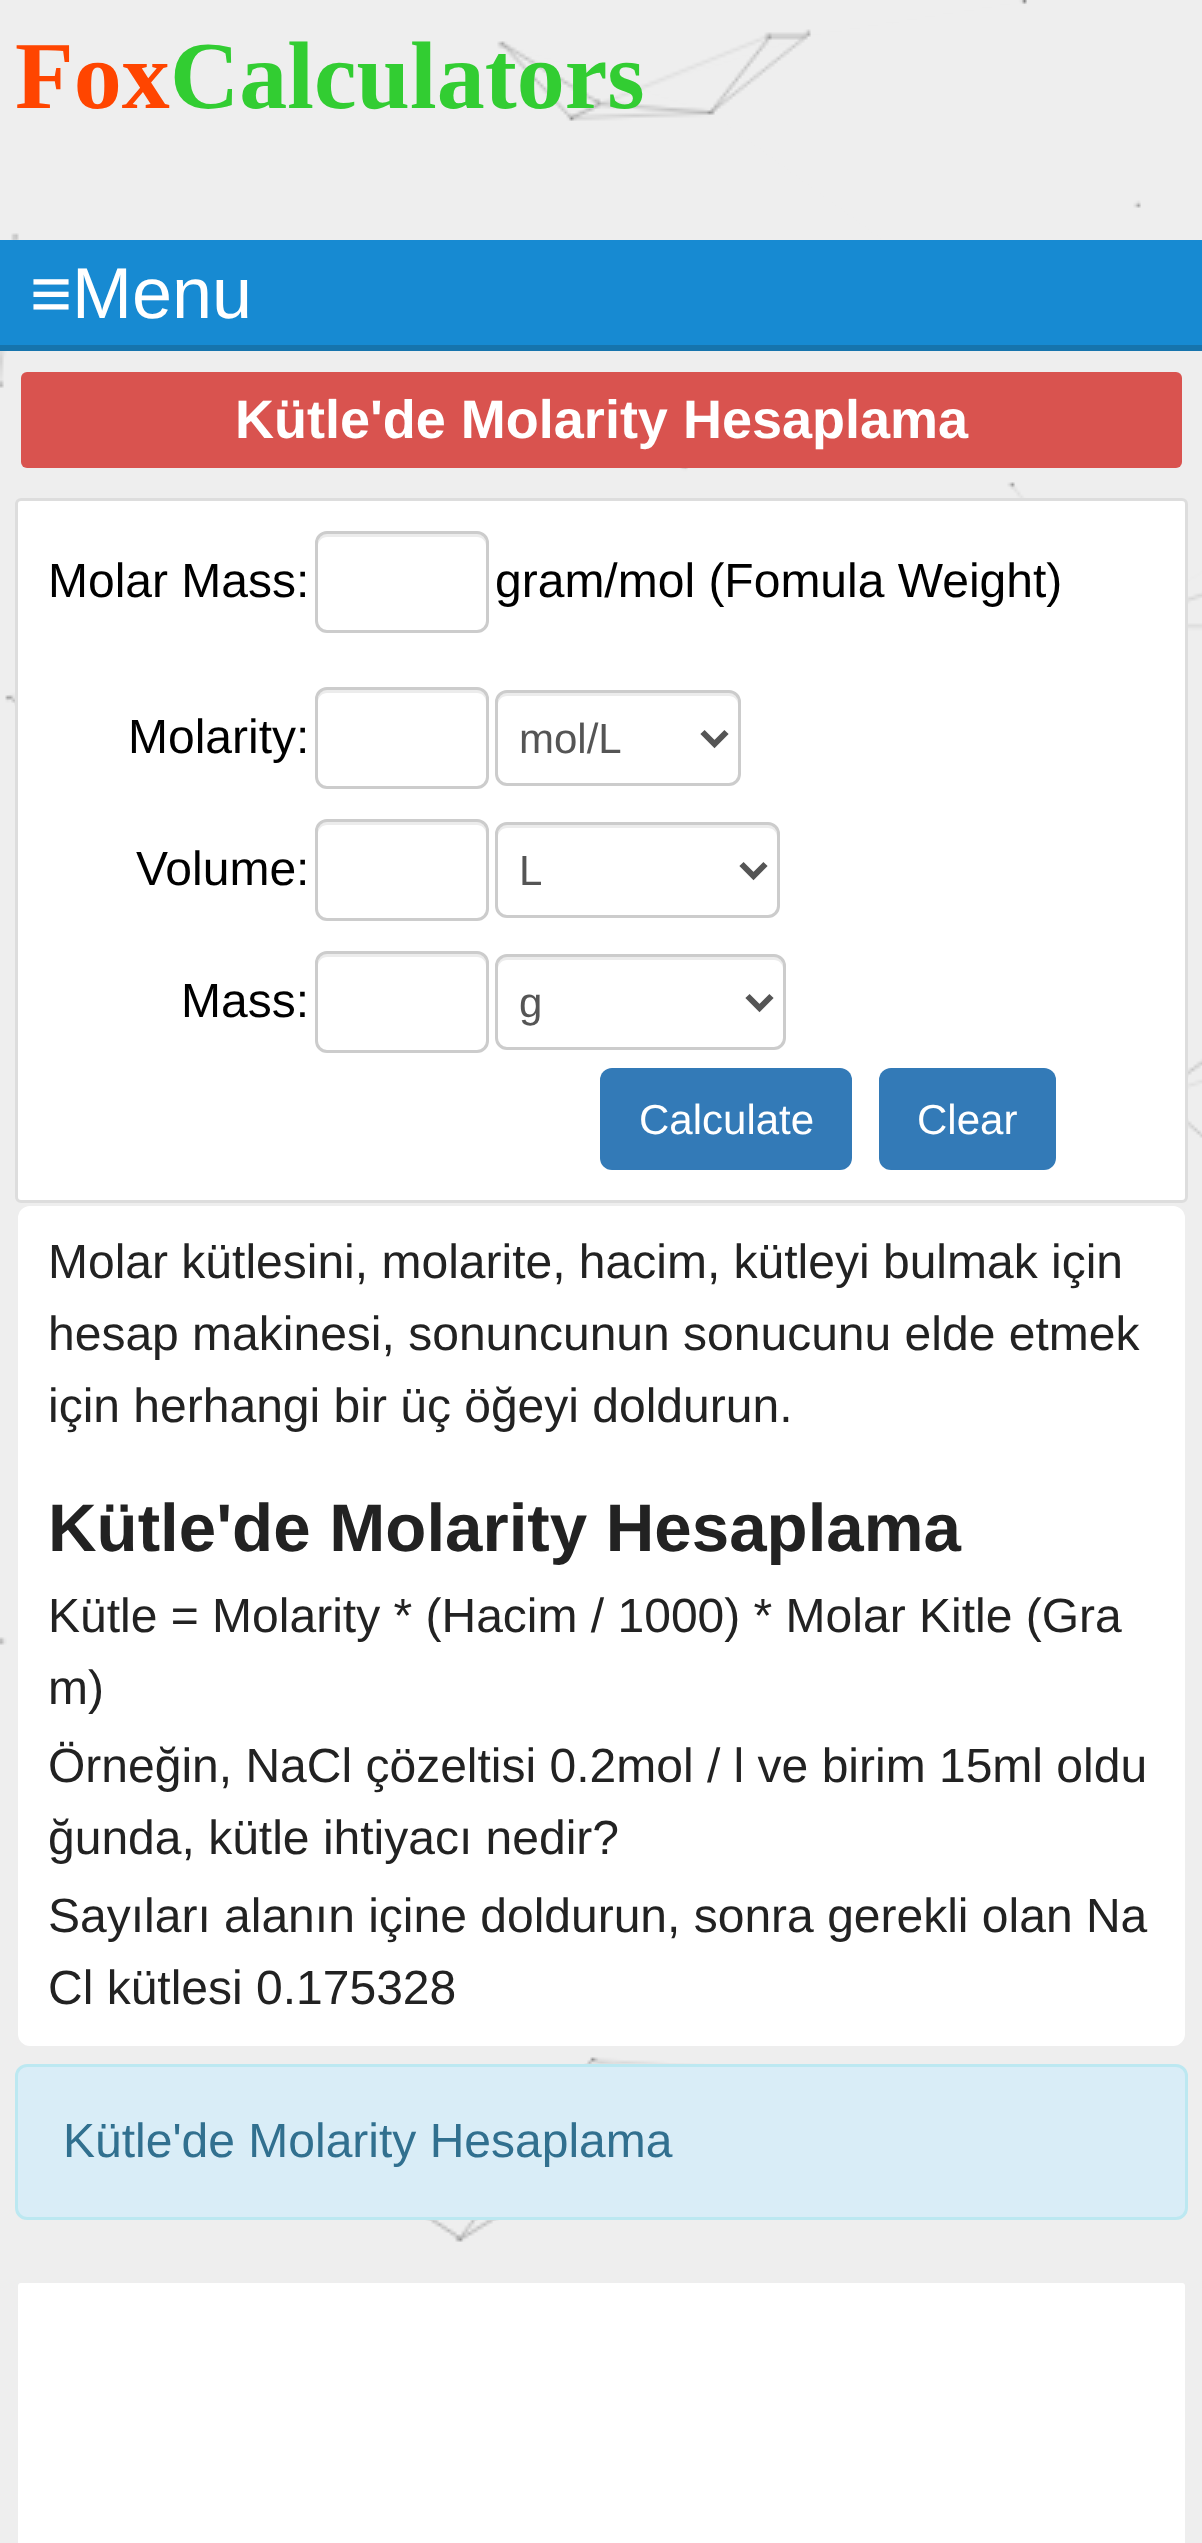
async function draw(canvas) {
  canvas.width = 1202;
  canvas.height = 2543;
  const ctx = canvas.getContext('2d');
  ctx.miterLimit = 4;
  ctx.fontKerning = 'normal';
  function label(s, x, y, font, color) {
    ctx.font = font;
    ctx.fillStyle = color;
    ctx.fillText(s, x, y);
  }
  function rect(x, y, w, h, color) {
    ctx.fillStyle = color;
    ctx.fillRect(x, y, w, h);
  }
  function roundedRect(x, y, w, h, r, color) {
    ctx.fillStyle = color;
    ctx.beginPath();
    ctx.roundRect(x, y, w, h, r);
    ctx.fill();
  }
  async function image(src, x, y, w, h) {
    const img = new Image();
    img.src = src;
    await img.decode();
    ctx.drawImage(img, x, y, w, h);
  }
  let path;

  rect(0, 0, 1202, 2543, '#eee');
  await image('assets/img1.png', 0, 0, 1202, 2242);
  label('Fox', 15, 108, 'bold 96px Liberation Serif', '#ff4500');
  label('Calculators', 170, 108, 'bold 96px Liberation Serif', '#32cd32');
  rect(0, 240, 1202, 105, '#178ad2');
  rect(0, 345, 1202, 6, '#1674ad');
  label('≡Menu', 30, 318, '72px Liberation Sans', '#fff');
  roundedRect(21, 372, 1161, 96, 6, '#d9534f');
  label('Kütle\'de Molarity Hesaplama', 235, 438, 'bold 54px Liberation Sans', '#fff');
  ctx.beginPath();
  ctx.roundRect(16.5, 499.5, 1170, 702, 4.5);
  ctx.fill();
  ctx.strokeStyle = '#ddd';
  ctx.lineWidth = 3;
  ctx.stroke();
  label('Molar Mass:', 48, 597, '48px Liberation Sans', '#000');
  ctx.fillStyle = '#ececec';
  path = new Path2D('M327 537H477C482 537 486 541 486 546V543C486 538 482 534 477 534H327C322 534 318 538 318 543V546C318 541 322 537 327 537Z');
  ctx.fill(path);
  ctx.beginPath();
  ctx.roundRect(316.5, 532.5, 171, 99, 10.5);
  ctx.strokeStyle = '#ccc';
  ctx.stroke();
  label('gram/mol (Fomula Weight)', 495, 597, '48px Liberation Sans', '#000');
  label('Molarity:', 128, 753, '48px Liberation Sans', '#000');
  ctx.fillStyle = '#ececec';
  path = new Path2D('M327 693H477C482 693 486 697 486 702V699C486 694 482 690 477 690H327C322 690 318 694 318 699V702C318 697 322 693 327 693Z');
  ctx.fill(path);
  ctx.beginPath();
  ctx.roundRect(316.5, 688.5, 171, 99, 10.5);
  ctx.stroke();
  path = new Path2D('M507 696H729C734 696 738 700 738 705V702C738 697 734 693 729 693H507C502 693 498 697 498 702V705C498 700 502 696 507 696Z');
  ctx.fill(path);
  ctx.beginPath();
  ctx.roundRect(496.5, 691.5, 243, 93, 10.5);
  ctx.stroke();
  path = new Path2D('M702.5 732L714.5 744L726.5 732');
  ctx.strokeStyle = '#555';
  ctx.lineWidth = 6;
  ctx.stroke(path);
  label('mol/L', 519, 753, '42px Liberation Sans', '#555');
  label('Volume:', 136, 885, '48px Liberation Sans', '#000');
  ctx.fillStyle = '#ececec';
  path = new Path2D('M327 825H477C482 825 486 829 486 834V831C486 826 482 822 477 822H327C322 822 318 826 318 831V834C318 829 322 825 327 825Z');
  ctx.fill(path);
  ctx.beginPath();
  ctx.roundRect(316.5, 820.5, 171, 99, 10.5);
  ctx.strokeStyle = '#ccc';
  ctx.lineWidth = 3;
  ctx.stroke();
  path = new Path2D('M507 828H768C773 828 777 832 777 837V834C777 829 773 825 768 825H507C502 825 498 829 498 834V837C498 832 502 828 507 828Z');
  ctx.fill(path);
  ctx.beginPath();
  ctx.roundRect(496.5, 823.5, 282, 93, 10.5);
  ctx.stroke();
  path = new Path2D('M741.5 864L753.5 876L765.5 864');
  ctx.strokeStyle = '#555';
  ctx.lineWidth = 6;
  ctx.stroke(path);
  label('L', 519, 885, '42px Liberation Sans', '#555');
  label('Mass:', 181, 1017, '48px Liberation Sans', '#000');
  ctx.fillStyle = '#ececec';
  path = new Path2D('M327 957H477C482 957 486 961 486 966V963C486 958 482 954 477 954H327C322 954 318 958 318 963V966C318 961 322 957 327 957Z');
  ctx.fill(path);
  ctx.beginPath();
  ctx.roundRect(316.5, 952.5, 171, 99, 10.5);
  ctx.strokeStyle = '#ccc';
  ctx.lineWidth = 3;
  ctx.stroke();
  path = new Path2D('M507 960H774C779 960 783 964 783 969V966C783 961 779 957 774 957H507C502 957 498 961 498 966V969C498 964 502 960 507 960Z');
  ctx.fill(path);
  ctx.beginPath();
  ctx.roundRect(496.5, 955.5, 288, 93, 10.5);
  ctx.stroke();
  path = new Path2D('M747.5 996L759.5 1008L771.5 996');
  ctx.strokeStyle = '#555';
  ctx.lineWidth = 6;
  ctx.stroke(path);
  label('g', 519, 1017, '42px Liberation Sans', '#555');
  roundedRect(600, 1068, 252, 102, 12, '#337ab7');
  label('Calculate', 639, 1134, '42px Liberation Sans', '#fff');
  roundedRect(879, 1068, 177, 102, 12, '#337ab7');
  label('Clear', 917, 1134, '42px Liberation Sans', '#fff');
  ctx.beginPath();
  ctx.roundRect(16.5, 1204.5, 1170, 843, 13.5);
  ctx.fill();
  ctx.strokeStyle = '#eee';
  ctx.lineWidth = 3;
  ctx.stroke();
  label('Molar kütlesini, molarite, hacim, kütleyi bulmak için', 48, 1278, '48px Liberation Sans', '#222');
  label('hesap makinesi, sonuncunun sonucunu elde etmek', 48, 1350, '48px Liberation Sans', '#222');
  label('için herhangi bir üç öğeyi doldurun.', 48, 1422, '48px Liberation Sans', '#222');
  label('Kütle\'de Molarity Hesaplama', 48, 1551, 'bold 67.25px Liberation Sans', '#222');
  label('Kütle = Molarity * (Hacim / 1000) * Molar Kitle (Gra', 48, 1632, '48px Liberation Sans', '#222');
  label('m)', 48, 1704, '48px Liberation Sans', '#222');
  label('Örneğin, NaCl çözeltisi 0.2mol / l ve birim 15ml oldu', 48, 1782, '48px Liberation Sans', '#222');
  label('ğunda, kütle ihtiyacı nedir?', 48, 1854, '48px Liberation Sans', '#222');
  label('Sayıları alanın içine doldurun, sonra gerekli olan Na', 48, 1932, '48px Liberation Sans', '#222');
  label('Cl kütlesi 0.175328', 48, 2004, '48px Liberation Sans', '#222');
  ctx.fillStyle = '#d9edf7';
  ctx.beginPath();
  ctx.roundRect(16.5, 2065.5, 1170, 153, 10.5);
  ctx.fill();
  ctx.strokeStyle = '#bce8f1';
  ctx.stroke();
  label('Kütle\'de Molarity Hesaplama', 63, 2157, '48px Liberation Sans', '#31708f');
  ctx.fillStyle = '#fff';
  ctx.beginPath();
  ctx.roundRect(16.5, 2281.5, 1170, 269, 4.5);
  ctx.fill();
  ctx.strokeStyle = '#eee';
  ctx.stroke();
}

draw(document.querySelector('canvas'));
